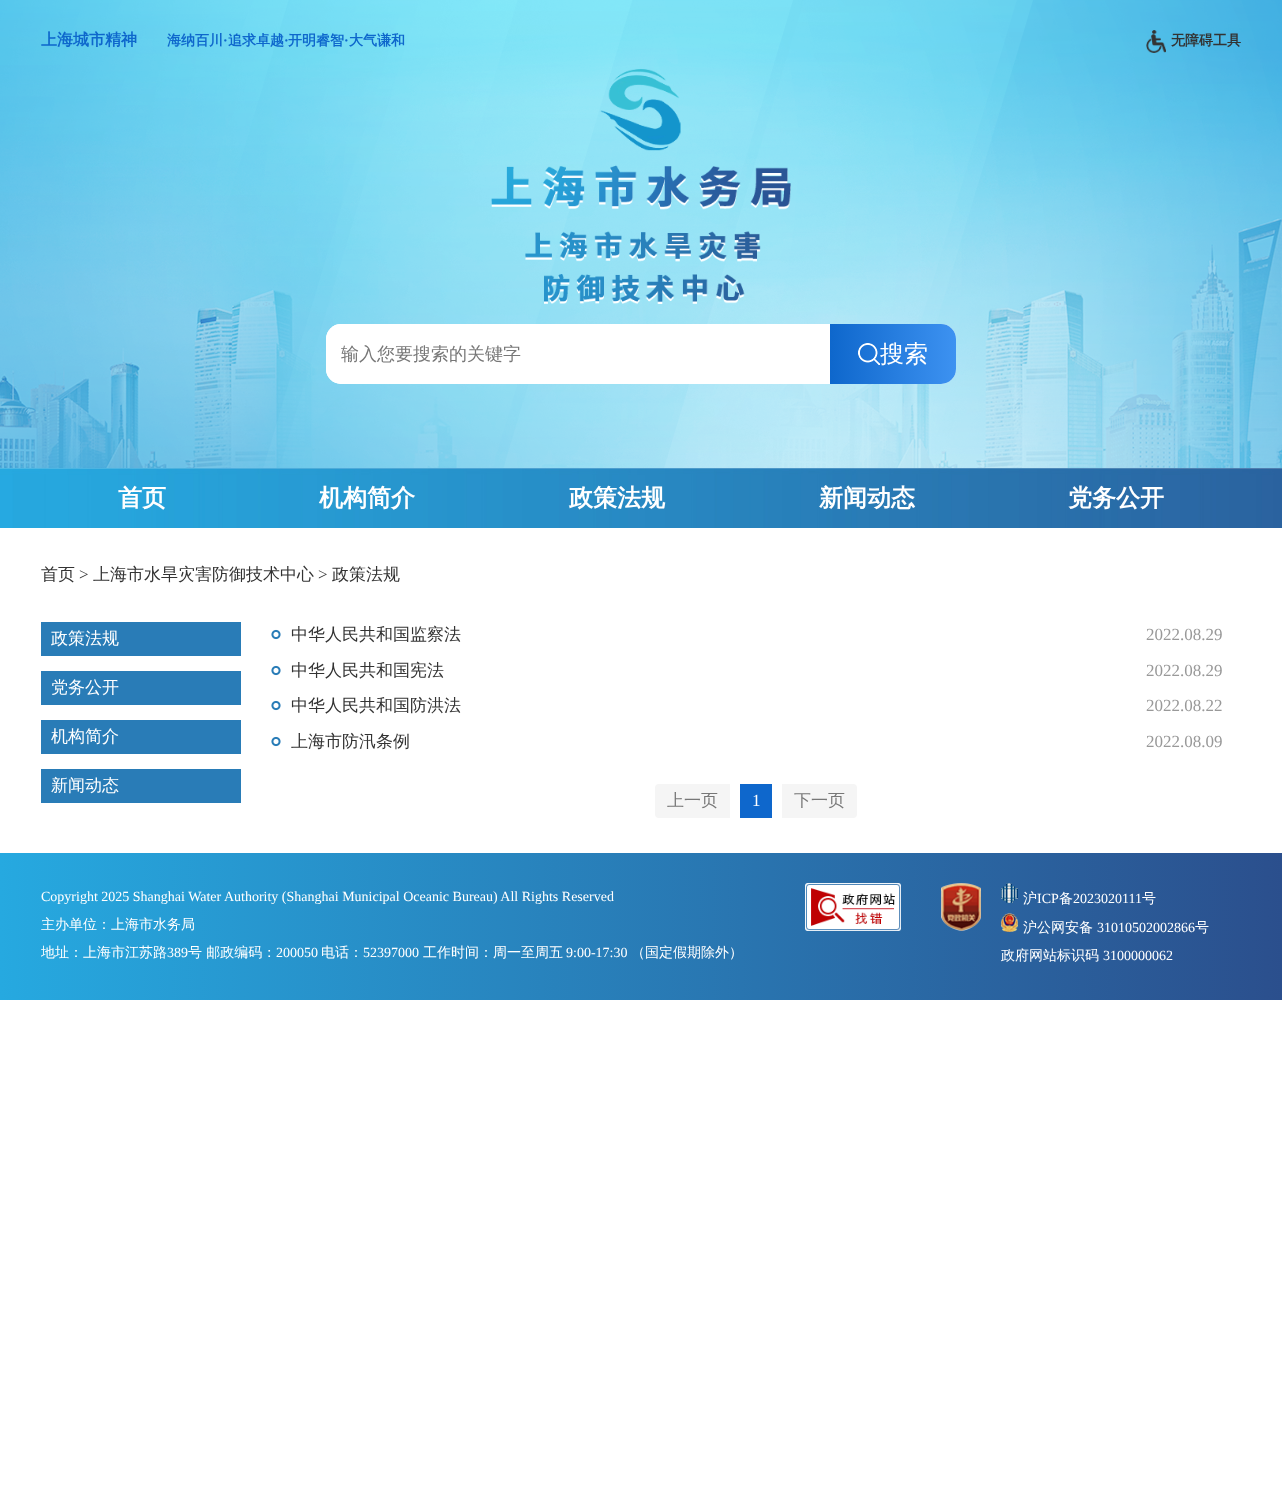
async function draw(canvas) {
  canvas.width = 1282;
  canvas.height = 1486;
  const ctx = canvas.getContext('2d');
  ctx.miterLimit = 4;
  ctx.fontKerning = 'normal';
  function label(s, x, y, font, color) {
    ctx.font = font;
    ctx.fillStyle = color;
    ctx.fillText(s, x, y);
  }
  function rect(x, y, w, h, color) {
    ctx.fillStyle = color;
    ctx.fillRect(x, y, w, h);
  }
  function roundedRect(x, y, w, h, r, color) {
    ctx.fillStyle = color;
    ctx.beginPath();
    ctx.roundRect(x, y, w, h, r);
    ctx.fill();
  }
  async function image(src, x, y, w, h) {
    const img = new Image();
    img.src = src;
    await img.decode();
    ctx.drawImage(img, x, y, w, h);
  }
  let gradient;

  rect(0, 0, 1282, 1486, '#fff');
  await image('assets/img1.png', 0, 0, 1282, 468);
  label('上海城市精神', 41, 45, 'bold 16px WenQuanYi Zen Hei', '#0e67cc');
  label('海纳百川', 167, 45, 'bold 14px WenQuanYi Zen Hei', '#0e67cc');
  label('·', 223, 45, 'bold 14px Liberation Serif', '#0e67cc');
  label('追求卓越', 228, 45, 'bold 14px WenQuanYi Zen Hei', '#0e67cc');
  label('·', 284, 45, 'bold 14px Liberation Serif', '#0e67cc');
  label('开明睿智', 288, 45, 'bold 14px WenQuanYi Zen Hei', '#0e67cc');
  label('·', 344, 45, 'bold 14px Liberation Serif', '#0e67cc');
  label('大气谦和', 349, 45, 'bold 14px WenQuanYi Zen Hei', '#0e67cc');
  await image('assets/img2.png', 1146, 30, 20, 23);
  label('无障碍工具', 1171, 45, 'bold 14px WenQuanYi Zen Hei', '#333');
  await image('assets/img3.png', 491, 69, 300, 235);
  roundedRect(326, 324, 630, 60, 15, '#fff');
  roundedRect(326, 324, 504, 60, 15, '#fff');
  label('输入您要搜索的关键字', 341, 360, '500 18px WenQuanYi Zen Hei', '#777');
  gradient = ctx.createLinearGradient(830, 354, 956, 354);
  gradient.addColorStop(0, '#0e67cc');
  gradient.addColorStop(1, '#3d92f1');
  ctx.fillStyle = gradient;
  ctx.beginPath();
  ctx.roundRect(830, 324, 126, 60, [0, 15, 15, 0]);
  ctx.fill();
  await image('assets/img4.png', 858, 343, 22, 22);
  label('搜索', 880, 362, '500 24px WenQuanYi Zen Hei', '#fff');
  await image('assets/img5.png', 0, 468, 1282, 60);
  label('首页', 118, 506, 'bold 24px WenQuanYi Zen Hei', '#fff');
  label('机构简介', 319, 506, 'bold 24px WenQuanYi Zen Hei', '#fff');
  label('政策法规', 569, 506, 'bold 24px WenQuanYi Zen Hei', '#fff');
  label('新闻动态', 819, 506, 'bold 24px WenQuanYi Zen Hei', '#fff');
  label('党务公开', 1068, 506, 'bold 24px WenQuanYi Zen Hei', '#fff');
  label('首页', 41, 580, '500 17px WenQuanYi Zen Hei', '#333');
  label('>', 79, 580, '17px Liberation Serif', '#333');
  label('上海市水旱灾害防御技术中心', 93, 580, '500 17px WenQuanYi Zen Hei', '#333');
  label('>', 318, 580, '17px Liberation Serif', '#333');
  label('政策法规', 332, 580, '500 17px WenQuanYi Zen Hei', '#333');
  rect(41, 622, 200, 34, '#297cb7');
  label('政策法规', 51, 644, '500 17px WenQuanYi Zen Hei', '#fff');
  rect(41, 671, 200, 34, '#297cb7');
  label('党务公开', 51, 693, '500 17px WenQuanYi Zen Hei', '#fff');
  rect(41, 720, 200, 34, '#297cb7');
  label('机构简介', 51, 742, '500 17px WenQuanYi Zen Hei', '#fff');
  rect(41, 769, 200, 34, '#297cb7');
  label('新闻动态', 51, 791, '500 17px WenQuanYi Zen Hei', '#fff');
  await image('assets/img6.png', 271, 629, 10, 11);
  label('中华人民共和国监察法', 291, 640, '500 17px WenQuanYi Zen Hei', '#333');
  label('2022.08.29', 1146, 640, '17px Liberation Serif', '#999');
  await image('assets/img6.png', 271, 665, 10, 11);
  label('中华人民共和国宪法', 291, 676, '500 17px WenQuanYi Zen Hei', '#333');
  label('2022.08.29', 1146, 676, '17px Liberation Serif', '#999');
  await image('assets/img6.png', 271, 700, 10, 11);
  label('中华人民共和国防洪法', 291, 711, '500 17px WenQuanYi Zen Hei', '#333');
  label('2022.08.22', 1146, 711, '17px Liberation Serif', '#999');
  await image('assets/img6.png', 271, 736, 10, 11);
  label('上海市防汛条例', 291, 747, '500 17px WenQuanYi Zen Hei', '#333');
  label('2022.08.09', 1146, 747, '17px Liberation Serif', '#999');
  ctx.fillStyle = '#f5f5f5';
  ctx.beginPath();
  ctx.roundRect(655, 784, 75, 34, [4, 0, 0, 4]);
  ctx.fill();
  label('上一页', 667, 806, '500 17px WenQuanYi Zen Hei', '#777');
  rect(740, 784, 32, 34, '#0e67cc');
  label('1', 752, 806, '17px Liberation Serif', '#fff');
  ctx.fillStyle = '#f5f5f5';
  ctx.beginPath();
  ctx.roundRect(782, 784, 75, 34, [0, 4, 4, 0]);
  ctx.fill();
  label('下一页', 794, 806, '500 17px WenQuanYi Zen Hei', '#777');
  gradient = ctx.createLinearGradient(0, 926, 1282, 926);
  gradient.addColorStop(0, '#26a9e0');
  gradient.addColorStop(1, '#2b4f8d');
  ctx.fillStyle = gradient;
  ctx.fillRect(0, 853, 1282, 147);
  label('Copyright 2025 Shanghai Water Authority (Shanghai Municipal Oceanic Bureau) All Rights Reserved', 41, 901, '14px Liberation Serif', '#fff');
  label('主办单位：上海市水务局', 41, 929, '500 14px WenQuanYi Zen Hei', '#fff');
  label('地址：上海市江苏路', 41, 957, '500 14px WenQuanYi Zen Hei', '#fff');
  label('389', 167, 957, '14px Liberation Serif', '#fff');
  label('号 邮政编码：', 188, 957, '500 14px WenQuanYi Zen Hei', '#fff');
  label('200050', 276, 957, '14px Liberation Serif', '#fff');
  label('电话：', 321, 957, '500 14px WenQuanYi Zen Hei', '#fff');
  label('52397000', 363, 957, '14px Liberation Serif', '#fff');
  label('工作时间：周一至周五', 423, 957, '500 14px WenQuanYi Zen Hei', '#fff');
  label('9:00-17:30', 566, 957, '14px Liberation Serif', '#fff');
  label('（国定假期除外）', 631, 957, '500 14px WenQuanYi Zen Hei', '#fff');
  await image('assets/img7.png', 805, 883, 96, 48);
  await image('assets/img8.png', 941, 883, 40, 48);
  await image('assets/img9.png', 1001, 883, 17, 20);
  label('沪', 1023, 903, '500 14px WenQuanYi Zen Hei', '#fff');
  label('ICP', 1037, 903, '14px Liberation Serif', '#fff');
  label('备', 1059, 903, '500 14px WenQuanYi Zen Hei', '#fff');
  label('2023020111', 1073, 903, '14px Liberation Serif', '#fff');
  label('号', 1142, 903, '500 14px WenQuanYi Zen Hei', '#fff');
  await image('assets/img10.png', 1001, 913, 17, 19);
  label('沪公网安备', 1023, 932, '500 14px WenQuanYi Zen Hei', '#fff');
  label('31010502002866', 1097, 932, '14px Liberation Serif', '#fff');
  label('号', 1195, 932, '500 14px WenQuanYi Zen Hei', '#fff');
  label('政府网站标识码', 1001, 960, '500 14px WenQuanYi Zen Hei', '#fff');
  label('3100000062', 1103, 960, '14px Liberation Serif', '#fff');
}

draw(document.querySelector('canvas'));
